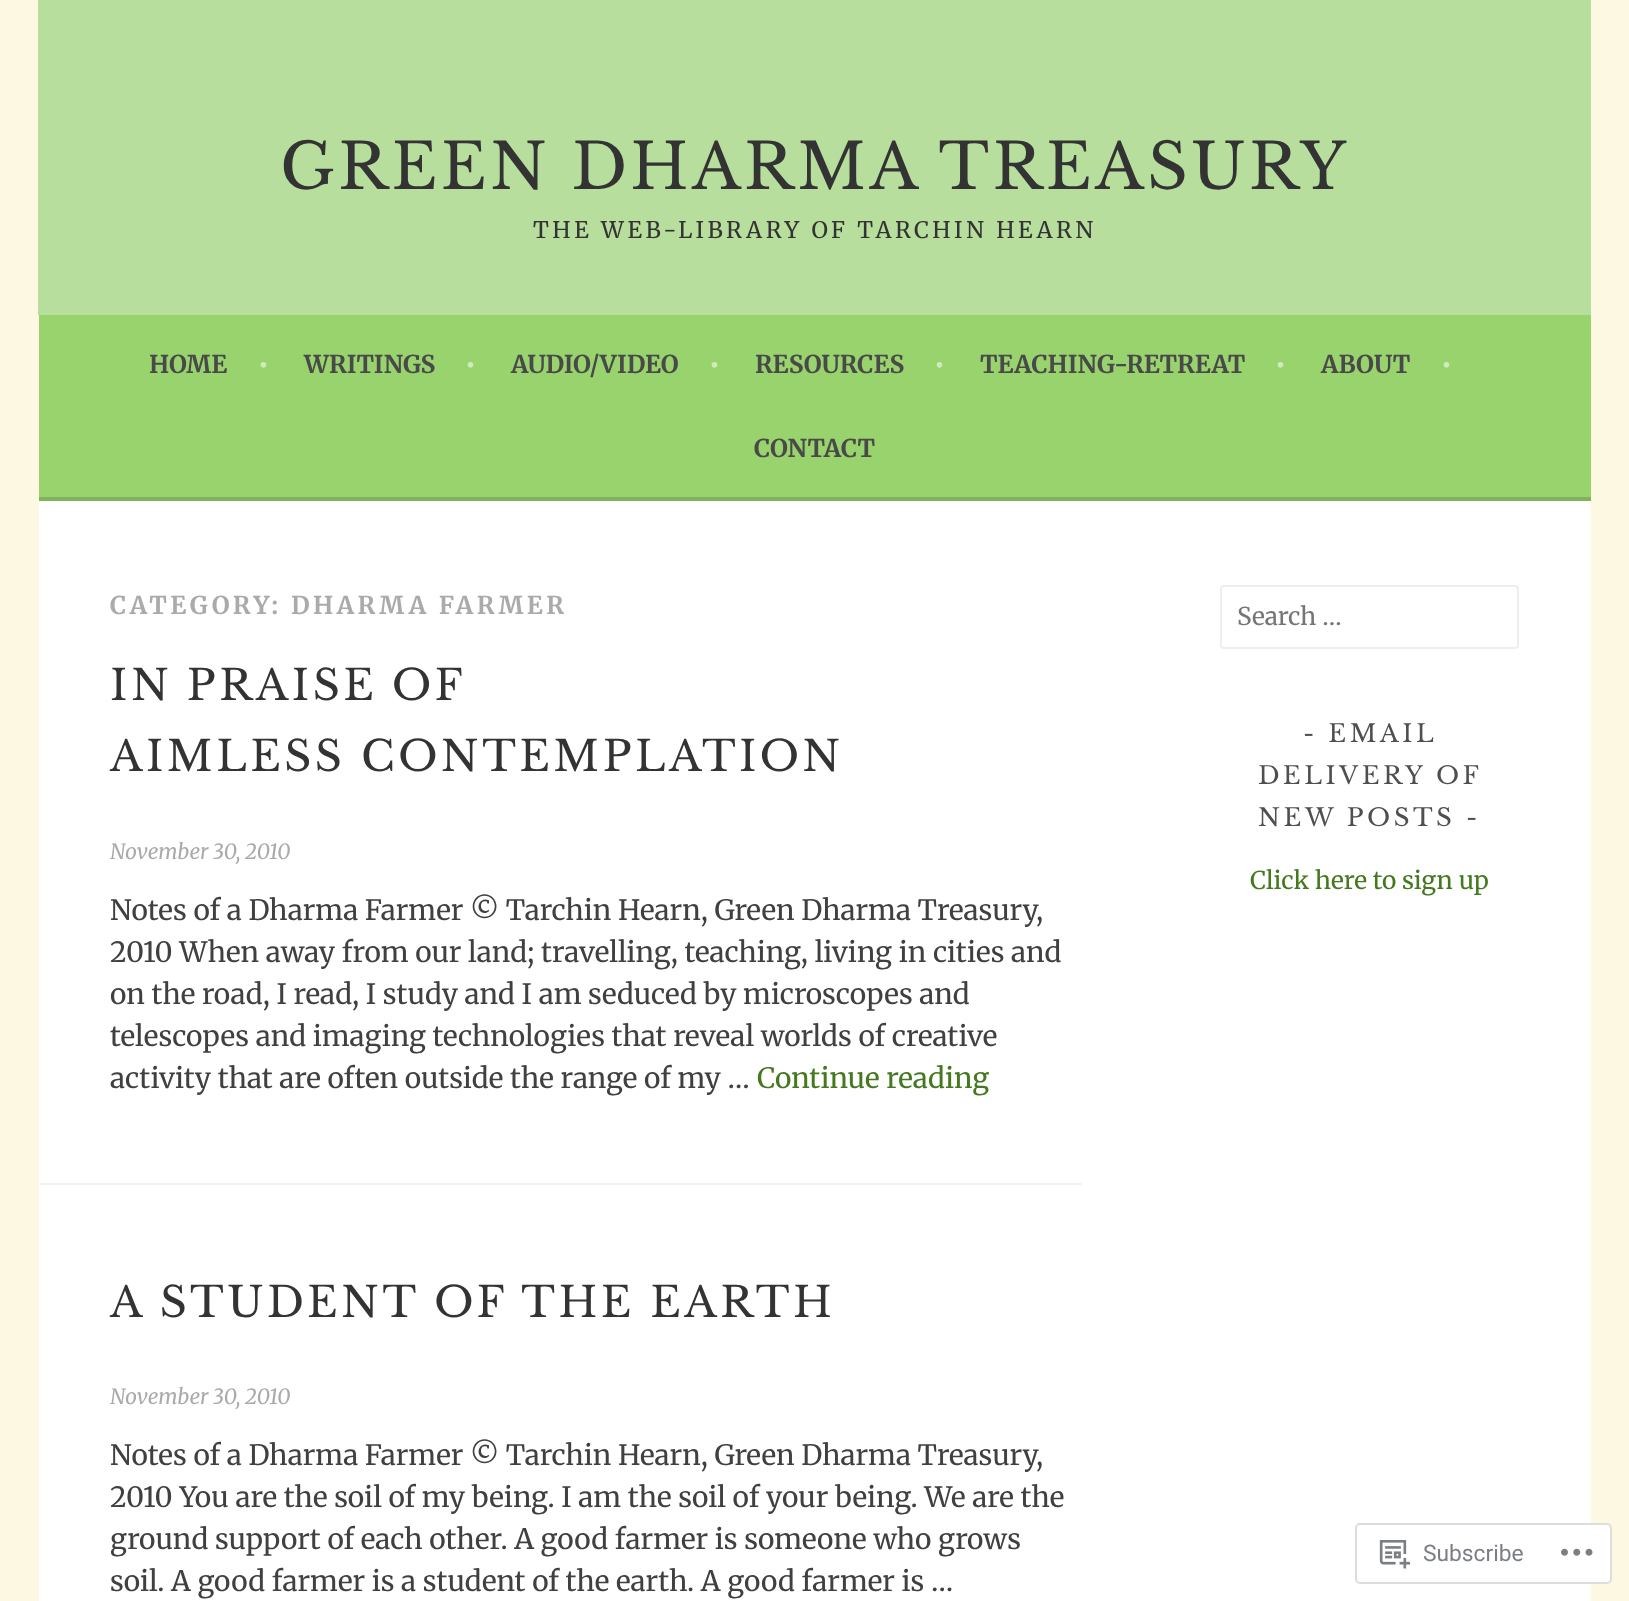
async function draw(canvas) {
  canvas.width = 1629;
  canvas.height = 1601;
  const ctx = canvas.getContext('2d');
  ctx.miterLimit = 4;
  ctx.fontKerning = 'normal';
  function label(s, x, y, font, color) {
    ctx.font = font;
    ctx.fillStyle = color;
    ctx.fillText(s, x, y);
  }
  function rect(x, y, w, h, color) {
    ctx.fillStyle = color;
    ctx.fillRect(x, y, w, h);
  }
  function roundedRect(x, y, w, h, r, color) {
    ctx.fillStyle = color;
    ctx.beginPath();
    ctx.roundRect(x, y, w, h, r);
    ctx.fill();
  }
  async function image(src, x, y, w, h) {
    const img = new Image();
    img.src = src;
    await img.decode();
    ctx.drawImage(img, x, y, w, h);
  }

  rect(0, 0, 1629, 1601, '#fdf8e2');
  rect(38, 0, 1553, 315, '#b7de9d');
  ctx.letterSpacing = '3.5px';
  label('GREEN DHARMA TREASURY', 280, 189, '63px Libre Baskerville', '#333');
  label('THE WEB-LIBRARY OF TARCHIN HEARN', 533, 238, '22.75px Merriweather', '#333');
  rect(39, 315, 1552, 182, '#98d36d');
  rect(39, 497, 1552, 4, '#81b35d');
  ctx.letterSpacing = '0px';
  label('HOME', 149, 373, 'bold 24.5px Merriweather', '#494949');
  label('•', 258, 373, 'bold 24.5px Merriweather', '#cfebbc');
  label('WRITINGS', 304, 373, 'bold 24.5px Merriweather', '#494949');
  label('•', 465, 373, 'bold 24.5px Merriweather', '#cfebbc');
  label('AUDIO/VIDEO', 511, 373, 'bold 24.5px Merriweather', '#494949');
  label('•', 709, 373, 'bold 24.5px Merriweather', '#cfebbc');
  label('RESOURCES', 755, 373, 'bold 24.5px Merriweather', '#494949');
  label('•', 934, 373, 'bold 24.5px Merriweather', '#cfebbc');
  label('TEACHING-RETREAT', 980, 373, 'bold 24.5px Merriweather', '#494949');
  label('•', 1275, 373, 'bold 24.5px Merriweather', '#cfebbc');
  label('ABOUT', 1321, 373, 'bold 24.5px Merriweather', '#494949');
  label('•', 1441, 373, 'bold 24.5px Merriweather', '#cfebbc');
  label('CONTACT', 754, 457, 'bold 24.5px Merriweather', '#494949');
  rect(39, 501, 1552, 1100, '#fff');
  ctx.letterSpacing = '3.5px';
  label('CATEGORY: DHARMA FARMER', 110, 614, 'bold 24.5px Merriweather', '#aaa');
  ctx.wordSpacing = '-1px';
  label('IN PRAISE OF', 110, 700, '42px Libre Baskerville', '#333');
  ctx.wordSpacing = '0px';
  label('AIMLESS CONTEMPLATION', 110, 771, '42px Libre Baskerville', '#333');
  ctx.letterSpacing = '0px';
  label('November 30, 2010', 110, 859, 'italic 21px Merriweather', '#aaa');
  label('Notes of a Dharma Farmer © Tarchin Hearn, Green Dharma Treasury,', 110, 920, '28px Merriweather', '#404040');
  label('2010 When away from our land; travelling, teaching, living in cities and', 110, 962, '28px Merriweather', '#404040');
  label('on the road, I read, I study and I am seduced by microscopes and', 110, 1004, '28px Merriweather', '#404040');
  label('telescopes and imaging technologies that reveal worlds of creative', 110, 1046, '28px Merriweather', '#404040');
  label('activity that are often outside the range of my …', 110, 1088, '28px Merriweather', '#404040');
  label('Continue reading', 757, 1088, '28px Merriweather', '#44791f');
  rect(40, 1183, 1042, 2, '#f2f2f2');
  ctx.letterSpacing = '3.5px';
  label('A STUDENT OF THE EARTH', 110, 1317, '42px Libre Baskerville', '#333');
  ctx.letterSpacing = '0px';
  label('November 30, 2010', 110, 1404, 'italic 21px Merriweather', '#aaa');
  label('Notes of a Dharma Farmer © Tarchin Hearn, Green Dharma Treasury,', 110, 1465, '28px Merriweather', '#404040');
  label('2010 You are the soil of my being. I am the soil of your being. We are the', 110, 1507, '28px Merriweather', '#404040');
  label('ground support of each other. A good farmer is someone who grows', 110, 1549, '28px Merriweather', '#404040');
  label('soil. A good farmer is a student of the earth. A good farmer is …', 110, 1591, '28px Merriweather', '#404040');
  ctx.beginPath();
  ctx.roundRect(1221, 586, 297, 62, 3);
  ctx.strokeStyle = '#eee';
  ctx.lineWidth = 2;
  ctx.stroke();
  label('Search …', 1237, 625, '24.5px Merriweather', '#757575');
  ctx.letterSpacing = '3.5px';
  label('- EMAIL', 1303, 742, '24.5px Libre Baskerville', '#4f4f4f');
  label('DELIVERY OF', 1258, 784, '24.5px Libre Baskerville', '#4f4f4f');
  label('NEW POSTS -', 1258, 826, '24.5px Libre Baskerville', '#4f4f4f');
  ctx.letterSpacing = '0px';
  label('Click here to sign up', 1250, 889, '24.5px Merriweather', '#44791f');
  roundedRect(1355, 1523, 257, 61, 5, '#fffffffa');
  ctx.beginPath();
  ctx.roundRect(1356, 1524, 255, 59, 4);
  ctx.strokeStyle = '#dcdcdefa';
  ctx.stroke();
  await image('assets/img1.png', 1379, 1540, 32, 29);
  label('Subscribe', 1423, 1561, '22.75px Roboto', '#7b7f85');
  await image('assets/img2.png', 1561, 1548, 32, 8);
}

draw(document.querySelector('canvas'));
